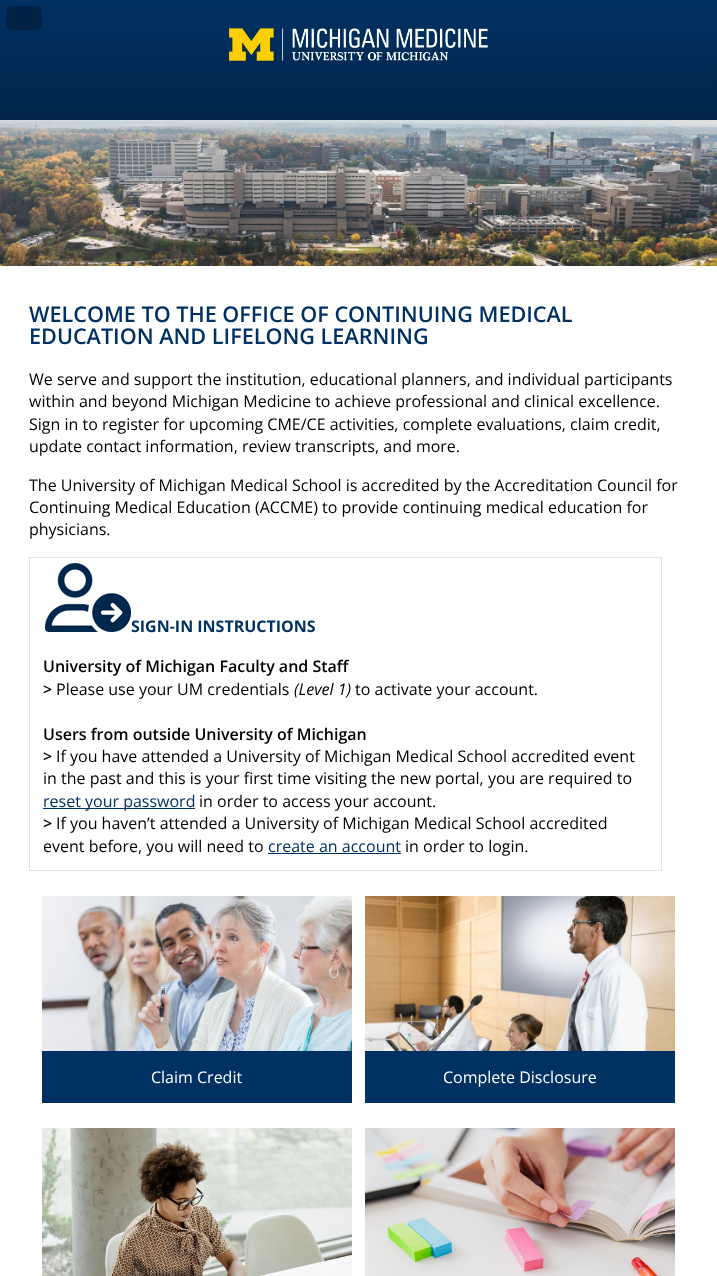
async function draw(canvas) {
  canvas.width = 717;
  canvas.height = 1276;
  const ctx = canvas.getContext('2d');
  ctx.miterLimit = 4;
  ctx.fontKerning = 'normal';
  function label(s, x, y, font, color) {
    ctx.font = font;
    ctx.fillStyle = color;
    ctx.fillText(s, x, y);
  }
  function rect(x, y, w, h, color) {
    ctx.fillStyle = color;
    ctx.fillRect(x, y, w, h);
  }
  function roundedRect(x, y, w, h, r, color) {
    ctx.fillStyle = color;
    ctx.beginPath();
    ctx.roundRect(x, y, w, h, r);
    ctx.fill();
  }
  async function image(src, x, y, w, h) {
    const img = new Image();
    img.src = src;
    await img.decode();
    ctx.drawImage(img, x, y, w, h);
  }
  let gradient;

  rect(0, 0, 717, 1276, '#fff');
  gradient = ctx.createLinearGradient(359, 0, 359, 120);
  gradient.addColorStop(0, '#003163');
  gradient.addColorStop(1, '#02254a');
  ctx.fillStyle = gradient;
  ctx.fillRect(0, 0, 717, 120);
  roundedRect(6, 6, 36, 24, 6, '#00000047');
  await image('assets/img1.png', 229, 28, 259, 33);
  await image('assets/img2.png', 0, 120, 717, 146);
  label('WELCOME TO THE OFFICE OF CONTINUING MEDICAL', 29, 322, '600 21.6px Open Sans', '#003163');
  label('EDUCATION AND LIFELONG LEARNING', 29, 344, '600 21.6px Open Sans', '#003163');
  label('We serve and support the institution, educational planners, and individual participants', 29, 385, '16px Open Sans', '#000');
  label('within and beyond Michigan Medicine to achieve professional and clinical excellence.', 29, 407, '16px Open Sans', '#000');
  label('Sign in to register for upcoming CME/CE activities, complete evaluations, claim credit,', 29, 430, '16px Open Sans', '#000');
  label('update contact information, review transcripts, and more.', 29, 452, '16px Open Sans', '#000');
  label('The University of Michigan Medical School is accredited by the Accreditation Council for', 29, 491, '16px Open Sans', '#000');
  label('Continuing Medical Education (ACCME) to provide continuing medical education for', 29, 513, '16px Open Sans', '#000');
  label('physicians.', 29, 535, '16px Open Sans', '#000');
  ctx.strokeStyle = '#e3e3e3';
  ctx.strokeRect(29.5, 557.5, 632, 313);
  await image('assets/img3.png', 45, 563, 86, 69);
  label('SIGN-IN INSTRUCTIONS', 131, 632, 'bold 16px Open Sans', '#003163');
  label('University of Michigan Faculty and Staff', 43, 672, '600 16px Open Sans', '#000');
  label('>', 43, 695, '600 16px Open Sans', '#000');
  label('Please use your UM credentials', 56, 695, '16px Open Sans', '#000');
  label('(Level 1)', 294, 695, 'italic 16px Open Sans', '#000');
  label('to activate your account.', 355, 695, '16px Open Sans', '#000');
  label('Users from outside University of Michigan', 43, 740, '600 16px Open Sans', '#000');
  label('>', 43, 762, '600 16px Open Sans', '#000');
  label('If you have attended a University of Michigan Medical School accredited event', 56, 762, '16px Open Sans', '#000');
  label('in the past and this is your first time visiting the new portal, you are required to', 43, 784, '16px Open Sans', '#000');
  rect(43, 808, 152, 1, '#003163');
  label('reset your password', 43, 807, '16px Open Sans', '#003163');
  label('in order to access your account.', 199, 807, '16px Open Sans', '#000');
  label('>', 43, 829, '600 16px Open Sans', '#000');
  label('If you haven’t attended a University of Michigan Medical School accredited', 56, 829, '16px Open Sans', '#000');
  label('event before, you will need to', 43, 852, '16px Open Sans', '#000');
  label('create an account', 268, 852, '16px Open Sans', '#003163');
  rect(268, 853, 133, 1, '#003163');
  label('in order to login.', 405, 852, '16px Open Sans', '#000');
  await image('assets/img4.png', 42, 896, 310, 155);
  rect(42, 1051, 310, 52, '#003163');
  label('Claim Credit', 151, 1083, '16px Open Sans', '#fff');
  await image('assets/img5.png', 365, 896, 310, 155);
  rect(365, 1051, 310, 52, '#003163');
  label('Complete Disclosure', 443, 1083, '16px Open Sans', '#fff');
  await image('assets/img6.png', 42, 1128, 310, 148);
  await image('assets/img7.png', 365, 1128, 310, 148);
}

draw(document.querySelector('canvas'));
